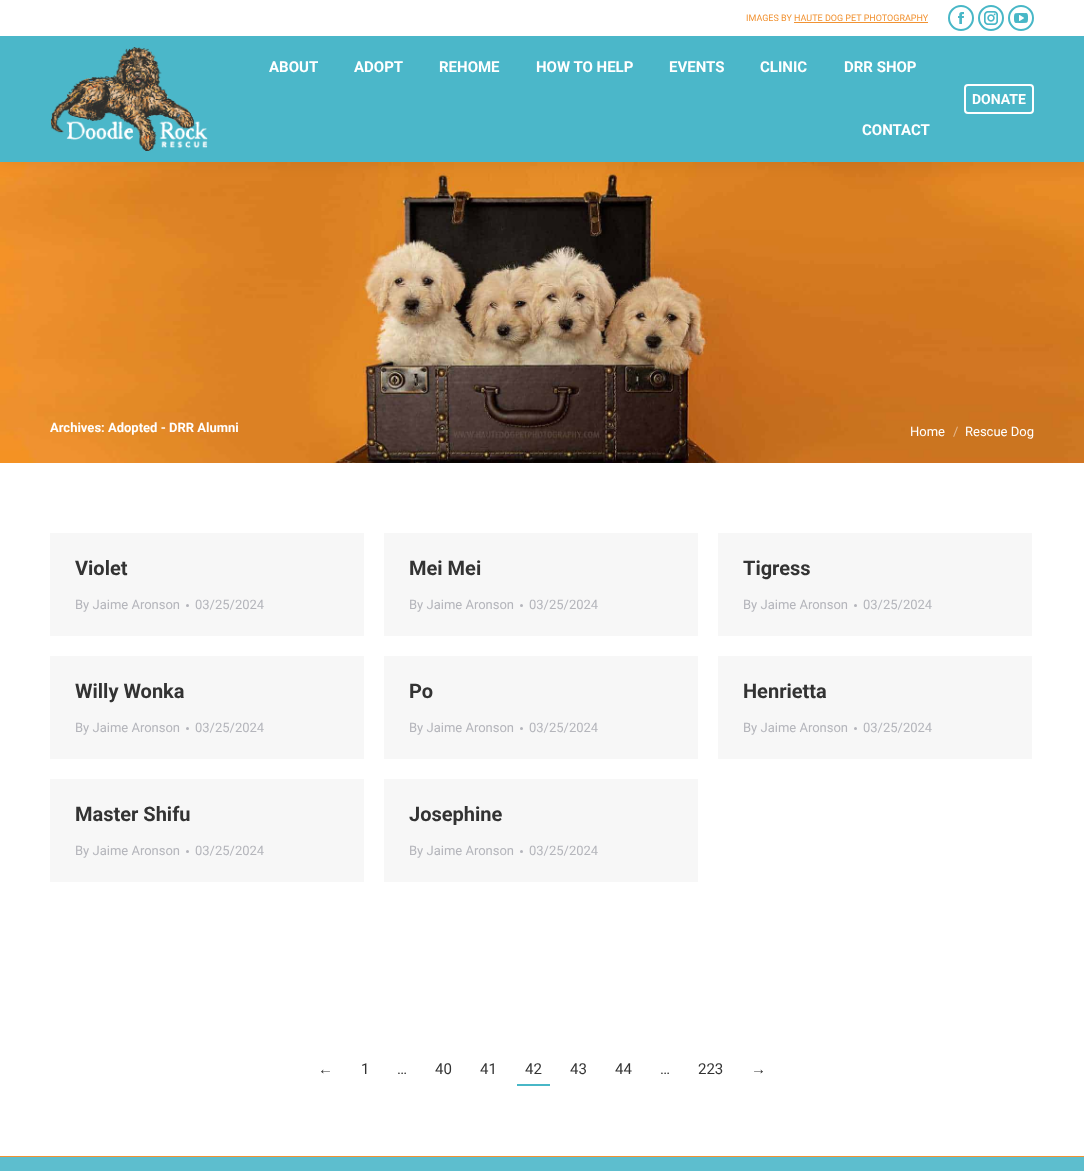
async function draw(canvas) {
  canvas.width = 1084;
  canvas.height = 1171;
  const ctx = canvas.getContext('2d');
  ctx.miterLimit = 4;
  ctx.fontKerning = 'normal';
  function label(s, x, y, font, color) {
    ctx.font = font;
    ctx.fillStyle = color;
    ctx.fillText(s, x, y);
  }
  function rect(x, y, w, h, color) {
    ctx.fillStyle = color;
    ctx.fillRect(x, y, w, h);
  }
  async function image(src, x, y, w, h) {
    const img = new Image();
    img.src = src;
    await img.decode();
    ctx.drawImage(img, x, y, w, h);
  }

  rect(0, 0, 1084, 1171, '#fff');
  await image('assets/img5.png', 0, 162, 1084, 301);
  ctx.fillStyle = '#00000012';
  ctx.filter = 'blur(7.5px)';
  ctx.beginPath();
  ctx.rect(-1, -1, 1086, 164);
  ctx.fill();
  ctx.filter = 'none';
  rect(0, 36, 1084, 126, '#4bb7c9');
  rect(0, 0, 1084, 36, '#fff');
  label('IMAGES BY HAUTE DOG PET PHOTOGRAPHY', 746, 21, '9px Roboto', '#f19232');
  rect(794, 22, 134, 1, '#f19232');
  ctx.beginPath();
  ctx.arc(961, 18, 12, 0, 2 * Math.PI);
  ctx.strokeStyle = '#48b7c7';
  ctx.lineWidth = 2;
  ctx.stroke();
  await image('assets/img1.png', 958, 12, 6, 12);
  ctx.beginPath();
  ctx.arc(991, 18, 12, 0, 2 * Math.PI);
  ctx.stroke();
  await image('assets/img2.png', 984, 11, 14, 14);
  ctx.beginPath();
  ctx.arc(1021, 18, 12, 0, 2 * Math.PI);
  ctx.stroke();
  await image('assets/img3.png', 1014, 13, 14, 10);
  await image('assets/img4.png', 51, 47, 157, 104);
  label('ABOUT', 269, 72, 'bold 15px Roboto', '#fff');
  label('ADOPT', 354, 72, 'bold 15px Roboto', '#fff');
  label('REHOME', 439, 72, 'bold 15px Roboto', '#fff');
  label('HOW TO HELP', 536, 72, 'bold 15px Roboto', '#fff');
  label('EVENTS', 669, 72, 'bold 15px Roboto', '#fff');
  label('CLINIC', 760, 72, 'bold 15px Roboto', '#fff');
  label('DRR SHOP', 844, 72, 'bold 15px Roboto', '#fff');
  label('CONTACT', 862, 135, 'bold 15px Roboto', '#fff');
  ctx.beginPath();
  ctx.roundRect(965, 85, 68, 28, 3);
  ctx.strokeStyle = '#fff';
  ctx.stroke();
  label('DONATE', 972, 104, 'bold 14px Roboto', '#fff');
  label('Archives: Adopted - DRR Alumni', 50, 432, 'bold 13px Roboto', '#fff');
  label('Home', 910, 436, '13px Roboto', '#fff');
  label('/', 953, 436, '13px Roboto', '#e5ba90');
  label('Rescue Dog', 965, 436, '13px Roboto', '#fff');
  rect(50, 533, 314, 103, '#f7f7f7');
  label('Violet', 75, 575, 'bold 20px Roboto', '#333');
  label('By Jaime Aronson', 75, 609, '13px Roboto', '#b4b5bb');
  ctx.beginPath();
  ctx.arc(187.5, 605.5, 1.5, 0, 2 * Math.PI);
  ctx.fill();
  label('03/25/2024', 195, 609, '13px Roboto', '#b4b5bb');
  rect(384, 533, 314, 103, '#f7f7f7');
  label('Mei Mei', 409, 575, 'bold 20px Roboto', '#333');
  label('By Jaime Aronson', 409, 609, '13px Roboto', '#b4b5bb');
  ctx.beginPath();
  ctx.arc(521.5, 605.5, 1.5, 0, 2 * Math.PI);
  ctx.fill();
  label('03/25/2024', 529, 609, '13px Roboto', '#b4b5bb');
  rect(718, 533, 314, 103, '#f7f7f7');
  label('Tigress', 743, 575, 'bold 20px Roboto', '#333');
  label('By Jaime Aronson', 743, 609, '13px Roboto', '#b4b5bb');
  ctx.beginPath();
  ctx.arc(855.5, 605.5, 1.5, 0, 2 * Math.PI);
  ctx.fill();
  label('03/25/2024', 863, 609, '13px Roboto', '#b4b5bb');
  rect(50, 656, 314, 103, '#f7f7f7');
  label('Willy Wonka', 75, 698, 'bold 20px Roboto', '#333');
  label('By Jaime Aronson', 75, 732, '13px Roboto', '#b4b5bb');
  ctx.beginPath();
  ctx.arc(187.5, 728.5, 1.5, 0, 2 * Math.PI);
  ctx.fill();
  label('03/25/2024', 195, 732, '13px Roboto', '#b4b5bb');
  rect(384, 656, 314, 103, '#f7f7f7');
  label('Po', 409, 698, 'bold 20px Roboto', '#333');
  label('By Jaime Aronson', 409, 732, '13px Roboto', '#b4b5bb');
  ctx.beginPath();
  ctx.arc(521.5, 728.5, 1.5, 0, 2 * Math.PI);
  ctx.fill();
  label('03/25/2024', 529, 732, '13px Roboto', '#b4b5bb');
  rect(718, 656, 314, 103, '#f7f7f7');
  label('Henrietta', 743, 698, 'bold 20px Roboto', '#333');
  label('By Jaime Aronson', 743, 732, '13px Roboto', '#b4b5bb');
  ctx.beginPath();
  ctx.arc(855.5, 728.5, 1.5, 0, 2 * Math.PI);
  ctx.fill();
  label('03/25/2024', 863, 732, '13px Roboto', '#b4b5bb');
  rect(50, 779, 314, 103, '#f7f7f7');
  label('Master Shifu', 75, 821, 'bold 20px Roboto', '#333');
  label('By Jaime Aronson', 75, 855, '13px Roboto', '#b4b5bb');
  ctx.beginPath();
  ctx.arc(187.5, 851.5, 1.5, 0, 2 * Math.PI);
  ctx.fill();
  label('03/25/2024', 195, 855, '13px Roboto', '#b4b5bb');
  rect(384, 779, 314, 103, '#f7f7f7');
  label('Josephine', 409, 821, 'bold 20px Roboto', '#333');
  label('By Jaime Aronson', 409, 855, '13px Roboto', '#b4b5bb');
  ctx.beginPath();
  ctx.arc(521.5, 851.5, 1.5, 0, 2 * Math.PI);
  ctx.fill();
  label('03/25/2024', 529, 855, '13px Roboto', '#b4b5bb');
  label('←', 318, 1074, '15px Liberation Sans', '#333');
  label('1', 361, 1074, '15px Roboto', '#333');
  label('…', 397, 1074, '15px Roboto', '#333');
  label('40', 435, 1074, '15px Roboto', '#333');
  label('41', 480, 1074, '15px Roboto', '#333');
  label('42', 525, 1074, '15px Roboto', '#333');
  rect(517, 1084, 33, 2, '#48b7c7');
  label('43', 570, 1074, '15px Roboto', '#333');
  label('44', 615, 1074, '15px Roboto', '#333');
  label('…', 660, 1074, '15px Roboto', '#333');
  label('223', 698, 1074, '15px Roboto', '#333');
  label('→', 751, 1074, '15px Liberation Sans', '#333');
  rect(0, 1156, 1084, 1, '#f19232');
  rect(0, 1157, 1084, 14, '#5dbece');
}

draw(document.querySelector('canvas'));
